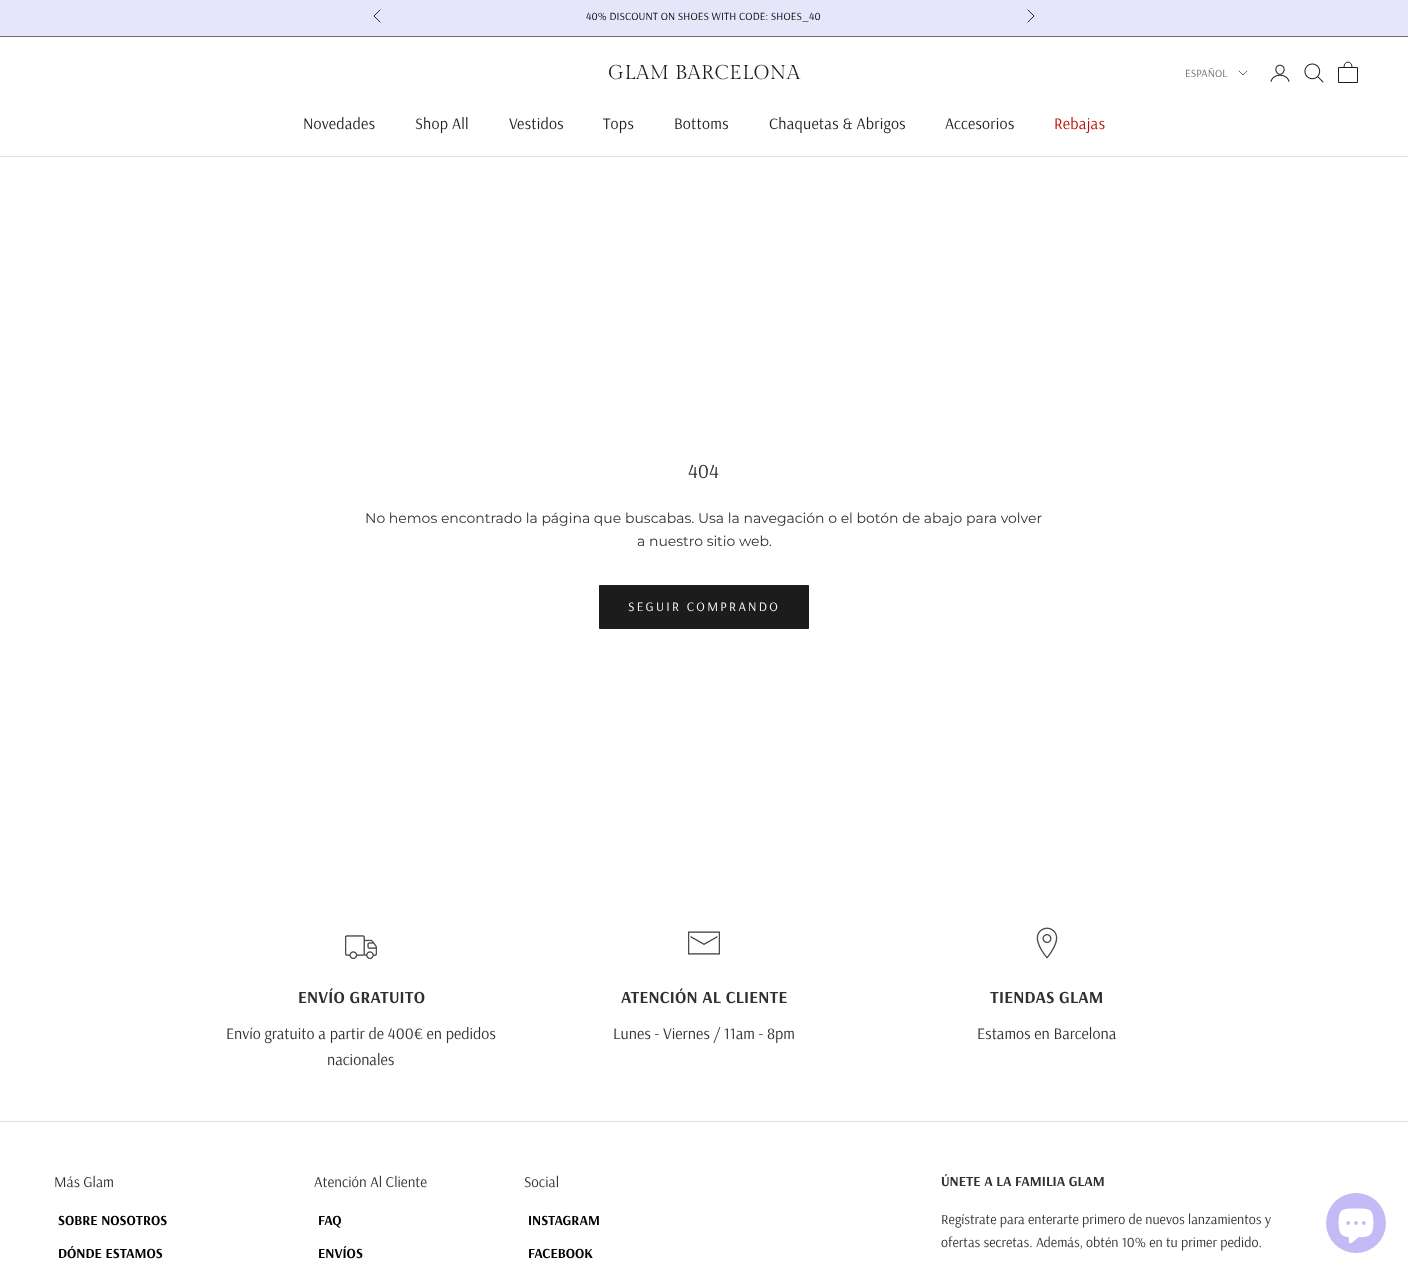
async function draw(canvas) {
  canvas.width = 1408;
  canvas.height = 1274;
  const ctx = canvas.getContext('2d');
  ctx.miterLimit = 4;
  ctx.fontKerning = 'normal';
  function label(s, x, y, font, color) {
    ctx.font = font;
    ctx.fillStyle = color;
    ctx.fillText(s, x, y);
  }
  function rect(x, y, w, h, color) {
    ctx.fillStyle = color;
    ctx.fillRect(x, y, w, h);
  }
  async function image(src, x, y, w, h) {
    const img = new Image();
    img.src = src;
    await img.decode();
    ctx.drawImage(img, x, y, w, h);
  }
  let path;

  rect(0, 0, 1408, 1274, '#fff');
  rect(0, 0, 1408, 36, '#e6e6fa');
  rect(0, 36, 1408, 1, '#6e6e6e');
  path = new Path2D('M380 10L374 16L380 22');
  ctx.strokeStyle = '#000';
  ctx.lineWidth = 0.8;
  ctx.lineCap = 'square';
  ctx.stroke(path);
  ctx.letterSpacing = '0.1px';
  label('40% DISCOUNT ON SHOES WITH CODE: SHOES_40', 586, 20, '11px Arsenal', '#000');
  path = new Path2D('M1028 22L1034 16L1028 10');
  ctx.stroke(path);
  ctx.letterSpacing = '0.5px';
  label('GLAM BARCELONA', 608, 79, '20px Gilda Display', '#1c1c1c');
  ctx.letterSpacing = '0.1px';
  label('ESPAÑOL', 1185, 77, '11px Arsenal', '#6b6b6b');
  path = new Path2D('M1239 71L1243 75L1247 71');
  ctx.strokeStyle = '#6b6b6b';
  ctx.lineWidth = 1;
  ctx.stroke(path);
  await image('assets/img1.png', 1270, 64, 20, 18);
  await image('assets/img2.png', 1304, 63, 20, 20);
  path = new Path2D('M1357.5 82.5V67.5H1338.5V82.5ZM1344 67C1344 60.5 1352 60.5 1352 67');
  ctx.strokeStyle = '#1c1c1c';
  ctx.lineCap = 'butt';
  ctx.stroke(path);
  ctx.letterSpacing = '0.2px';
  label('Novedades', 303, 129, '16px Arsenal', '#1c1c1c');
  label('Shop All', 415, 129, '16px Arsenal', '#1c1c1c');
  label('Vestidos', 509, 129, '16px Arsenal', '#1c1c1c');
  label('Tops', 603, 129, '16px Arsenal', '#1c1c1c');
  label('Bottoms', 674, 129, '16px Arsenal', '#1c1c1c');
  label('Chaquetas & Abrigos', 769, 129, '16px Arsenal', '#1c1c1c');
  label('Accesorios', 945, 129, '16px Arsenal', '#1c1c1c');
  label('Rebajas', 1054, 129, '16px Arsenal', '#ba0c00');
  rect(0, 156, 1408, 1, '#ddd');
  ctx.letterSpacing = '0px';
  label('404', 688, 478, '20px Arsenal', '#303030');
  label('No hemos encontrado la página que buscabas. Usa la navegación o el botón de abajo para volver', 365, 523, '100 14px Montserrat', '#303030');
  label('a nuestro sitio web.', 637, 546, '100 14px Montserrat', '#303030');
  ctx.fillStyle = '#1c1c1c';
  ctx.beginPath();
  ctx.rect(599.5, 585.5, 209, 43);
  ctx.fill();
  ctx.stroke();
  ctx.letterSpacing = '2.3px';
  label('SEGUIR COMPRANDO', 628, 611, '13px Arsenal', '#fff');
  await image('assets/img3.png', 345, 935, 32, 24);
  ctx.letterSpacing = '0.2px';
  label('ENVÍO GRATUITO', 298, 1003, 'bold 17px Arsenal', '#303030');
  ctx.letterSpacing = '0px';
  label('Envío gratuito a partir de 400€ en pedidos', 226, 1039, '16px Arsenal', '#303030');
  label('nacionales', 327, 1065, '16px Arsenal', '#303030');
  await image('assets/img4.png', 688, 931, 32, 24);
  ctx.letterSpacing = '0.2px';
  label('ATENCIÓN AL CLIENTE', 621, 1003, 'bold 17px Arsenal', '#303030');
  ctx.letterSpacing = '0px';
  label('Lunes - Viernes / 11am - 8pm', 613, 1039, '16px Arsenal', '#303030');
  await image('assets/img5.png', 1036, 927, 22, 32);
  ctx.letterSpacing = '0.2px';
  label('TIENDAS GLAM', 990, 1003, 'bold 17px Arsenal', '#303030');
  ctx.letterSpacing = '0px';
  label('Estamos en Barcelona', 977, 1039, '16px Arsenal', '#303030');
  rect(0, 1121, 1408, 1, '#e0e0e0');
  label('Más Glam', 54, 1187, '15px Arsenal', '#303030');
  label('SOBRE NOSOTROS', 58, 1225, 'bold 14px Arsenal', '#000');
  label('DÓNDE ESTAMOS', 58, 1258, 'bold 14px Arsenal', '#000');
  label('Atención Al Cliente', 314, 1187, '15px Arsenal', '#303030');
  label('FAQ', 318, 1225, 'bold 14px Arsenal', '#000');
  label('ENVÍOS', 318, 1258, 'bold 14px Arsenal', '#000');
  label('Social', 524, 1187, '15px Arsenal', '#303030');
  label('INSTAGRAM', 528, 1225, 'bold 14px Arsenal', '#000');
  label('FACEBOOK', 528, 1258, 'bold 14px Arsenal', '#000');
  label('ÚNETE A LA FAMILIA GLAM', 941, 1186, 'bold 14px Arsenal', '#303030');
  label('Regístrate para enterarte primero de nuevos lanzamientos y', 941, 1224, '14px Arsenal', '#303030');
  label('ofertas secretas. Además, obtén 10% en tu primer pedido.', 941, 1247, '14px Arsenal', '#303030');
  ctx.fillStyle = '#c3bbf5';
  ctx.beginPath();
  ctx.arc(1356, 1223, 30, 0, 2 * Math.PI);
  ctx.fill();
  await image('assets/img6.png', 1338, 1208, 36, 36);
}

draw(document.querySelector('canvas'));
